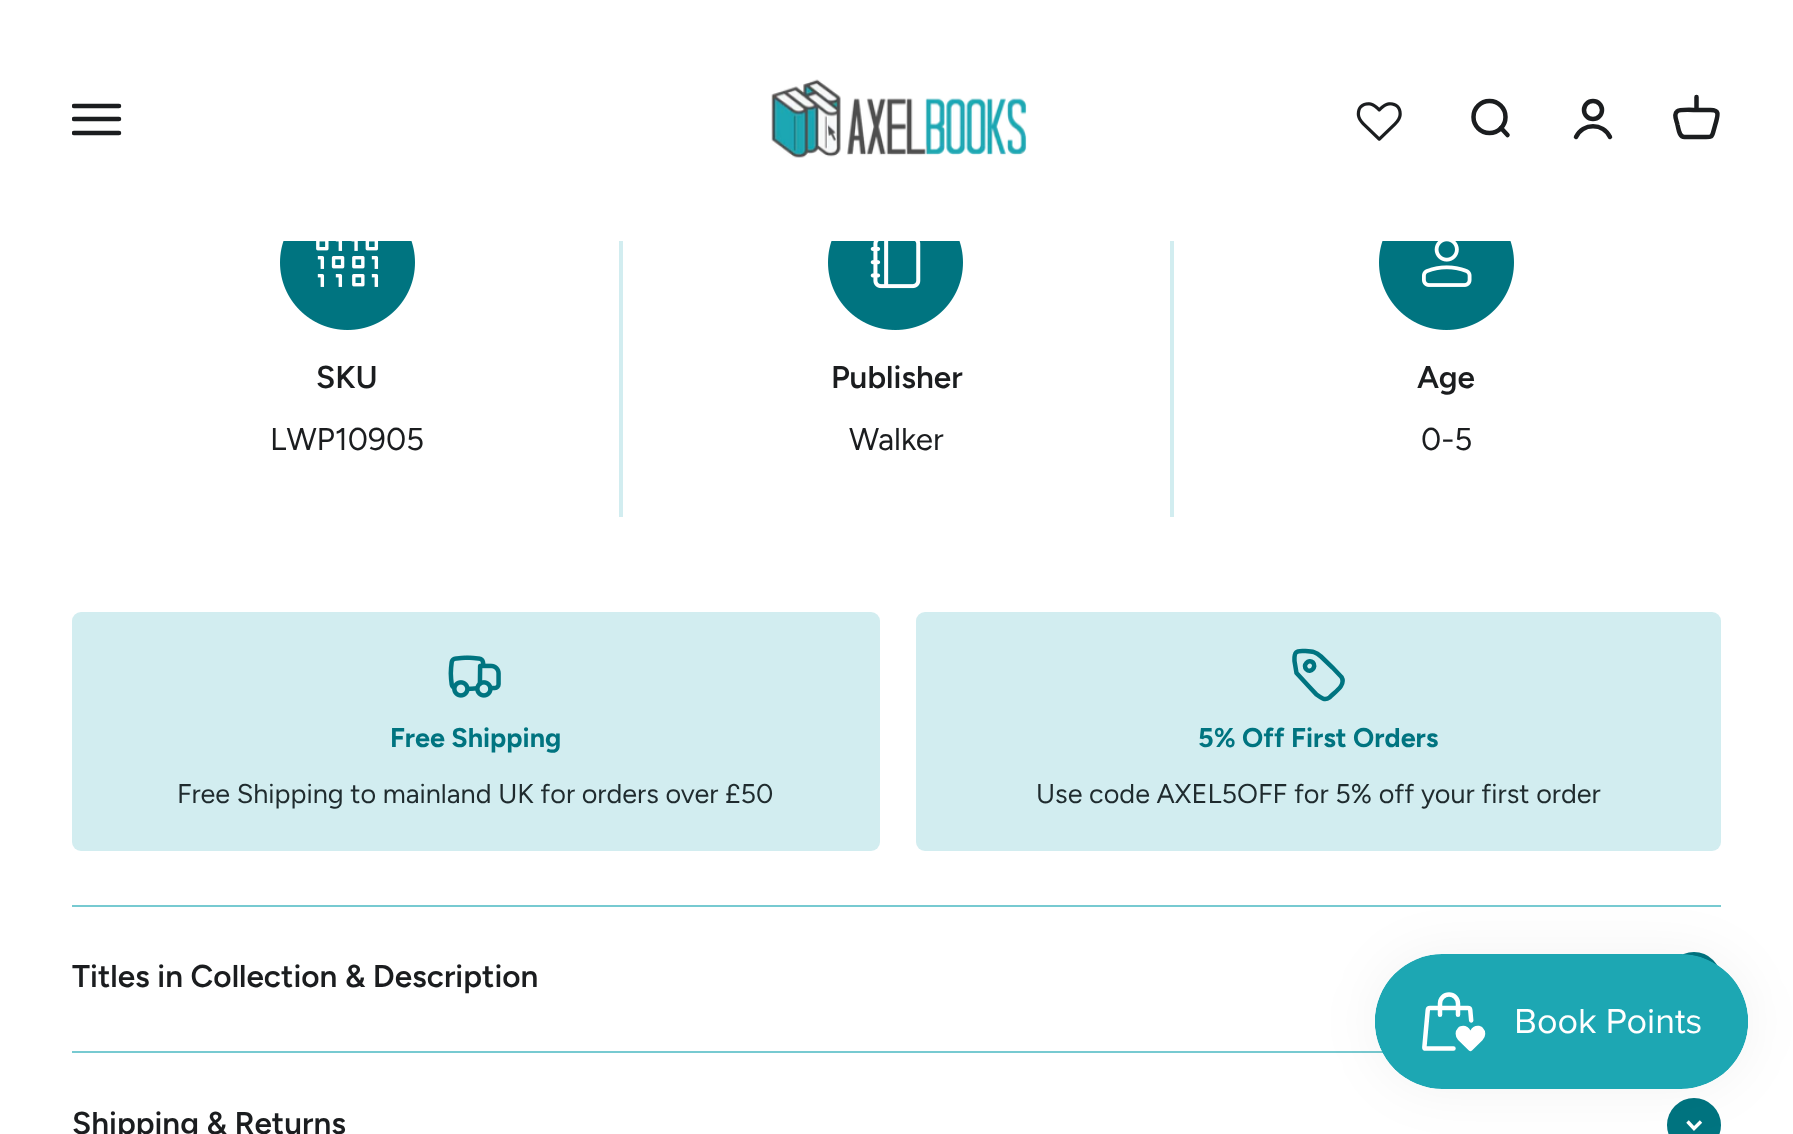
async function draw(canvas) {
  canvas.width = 1793;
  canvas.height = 1134;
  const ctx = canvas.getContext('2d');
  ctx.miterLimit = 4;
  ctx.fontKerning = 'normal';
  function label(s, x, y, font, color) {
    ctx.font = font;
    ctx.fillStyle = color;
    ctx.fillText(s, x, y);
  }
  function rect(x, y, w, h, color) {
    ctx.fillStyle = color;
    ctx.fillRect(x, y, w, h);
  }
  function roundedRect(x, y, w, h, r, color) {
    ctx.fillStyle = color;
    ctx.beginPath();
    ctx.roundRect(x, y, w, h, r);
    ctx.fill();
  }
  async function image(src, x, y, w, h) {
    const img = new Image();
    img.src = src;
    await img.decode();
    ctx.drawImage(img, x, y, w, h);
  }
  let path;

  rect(0, 0, 1793, 1134, '#fff');
  ctx.strokeStyle = '#d2edf0';
  ctx.lineWidth = 2;
  ctx.strokeRect(73, 141, 547, 380);
  await image('assets/img3.png', 280, 241, 135, 89);
  ctx.strokeRect(622, 141, 549, 380);
  await image('assets/img4.png', 828, 241, 135, 89);
  ctx.strokeRect(1173, 141, 547, 380);
  await image('assets/img5.png', 1379, 241, 135, 89);
  ctx.strokeStyle = '#fff';
  ctx.lineWidth = 5;
  ctx.strokeRect(74.5, -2.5, 1644, 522);
  rect(77, 140, 1639, 101, '#fff');
  ctx.save();
  ctx.beginPath();
  ctx.rect(72, 95, 50, 49);
  ctx.clip();
  path = new Path2D('M74 106H119M74 119H119M74 133H119');
  ctx.strokeStyle = '#1b1d1f';
  ctx.lineWidth = 4.5;
  ctx.lineCap = 'round';
  ctx.stroke(path);
  ctx.restore();
  await image('assets/img1.png', 771, 79, 256, 79);
  await image('assets/img2.png', 1356, 102, 46, 39);
  ctx.beginPath();
  ctx.arc(1489.5, 117, 16, 0, 2 * Math.PI);
  ctx.strokeStyle = '#1b1d1f';
  ctx.lineWidth = 4.5;
  ctx.stroke();
  path = new Path2D('M1501 128L1507.5 135');
  ctx.lineCap = 'round';
  ctx.lineJoin = 'round';
  ctx.stroke(path);
  ctx.beginPath();
  ctx.arc(1593, 110, 9, 0, 2 * Math.PI);
  ctx.stroke();
  path = new Path2D('M1576 137C1583 122.5 1603 122.5 1610 137');
  ctx.lineJoin = 'miter';
  ctx.stroke(path);
  path = new Path2D('M1696.5 110C1692.5 110 1679.5 109 1677 111.5C1673 114.5 1677 121.5 1677.5 125C1678.5 128.5 1679 137 1684.5 137H1704.5C1711 137 1712 137.5 1713.5 131L1716 122C1718 114.5 1719.5 110 1710.5 110ZM1696.5 110V97');
  ctx.lineJoin = 'round';
  ctx.stroke(path);
  label('SKU', 316, 388, '600 31.5px Figtree', '#1b1d1f');
  label('LWP10905', 270, 450, '31.5px Figtree', '#1b1d1f');
  label('Publisher', 831, 388, '600 31.5px Figtree', '#1b1d1f');
  label('Walker', 849, 450, '31.5px Figtree', '#1b1d1f');
  label('Age', 1417, 388, '600 31.5px Figtree', '#1b1d1f');
  label('0-5', 1421, 450, '31.5px Figtree', '#1b1d1f');
  roundedRect(72, 612, 808, 239, 9, '#d2edf0');
  await image('assets/img6.png', 448, 655, 53, 43);
  label('Free Shipping', 390, 747, 'bold 27px Figtree', '#007480');
  label('Free Shipping to mainland UK for orders over £50', 177, 803, '27px Figtree', '#1f2b2e');
  roundedRect(916, 612, 805, 239, 9, '#d2edf0');
  path = new Path2D('M1329.5 697.5C1324.5 701 1320.5 697.5 1316.5 694.5L1308.5 686L1296.5 673L1294.5 661C1294.5 658.5 1294 654.5 1296 652.5C1298 650.5 1302 651 1304.5 651C1312.5 651.5 1315.5 651.5 1321 656.5L1332.5 667.5L1341.5 677C1346.5 685.5 1334 692.5 1329.5 697.5ZM1313 662.5C1317 667 1310.5 673.5 1306.5 669.5C1302 665.5 1308.5 658.5 1313 662.5Z');
  ctx.strokeStyle = '#007480';
  ctx.lineCap = 'butt';
  ctx.lineJoin = 'miter';
  ctx.stroke(path);
  label('5% Off First Orders', 1198, 747, 'bold 27px Figtree', '#007480');
  label('Use code AXEL5OFF for 5% off your first order', 1036, 803, '27px Figtree', '#1f2b2e');
  rect(72, 905, 1649, 2, '#77cad1');
  rect(72, 1051, 1311, 2, '#77cad1');
  label('Titles in Collection & Description', 72, 987, '600 31.5px Figtree', '#1b1d1f');
  ctx.fillStyle = '#007480';
  ctx.beginPath();
  ctx.arc(1694, 979, 27, 0, 2 * Math.PI);
  ctx.fill();
  label('Shipping & Returns', 72, 1134, '600 31.5px Figtree', '#1b1d1f');
  ctx.fillStyle = '#007480';
  ctx.beginPath();
  ctx.arc(1694, 1125, 27, 0, 2 * Math.PI);
  ctx.fill();
  path = new Path2D('M1687.5 1121.5L1694 1128.5L1701 1121.5');
  ctx.strokeStyle = '#fff';
  ctx.lineWidth = 3.4;
  ctx.stroke(path);
  ctx.fillStyle = '#0000000d';
  ctx.filter = 'blur(28px)';
  ctx.beginPath();
  ctx.roundRect(1375, 954, 373, 135, 67.5);
  ctx.fill();
  ctx.filter = 'none';
  await image('assets/img7.png', 1375, 954, 373, 135);
}

draw(document.querySelector('canvas'));
